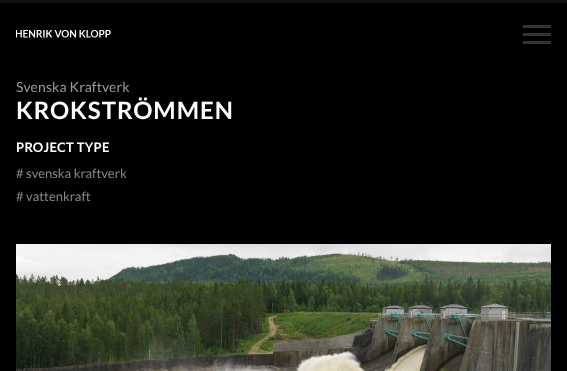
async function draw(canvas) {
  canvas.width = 567;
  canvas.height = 371;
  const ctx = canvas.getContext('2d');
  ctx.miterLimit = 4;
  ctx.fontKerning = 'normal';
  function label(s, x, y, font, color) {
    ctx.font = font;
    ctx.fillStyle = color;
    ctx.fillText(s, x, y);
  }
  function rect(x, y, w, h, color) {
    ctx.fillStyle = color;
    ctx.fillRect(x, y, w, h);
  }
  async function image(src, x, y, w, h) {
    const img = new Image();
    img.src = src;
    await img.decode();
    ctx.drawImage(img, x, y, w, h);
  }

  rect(0, 0, 567, 371, '#000');
  rect(0, 0, 567, 3, '#111116');
  await image('assets/img1.png', 16, 30, 95, 8);
  rect(523, 33, 28, 3, '#333');
  rect(523, 25, 28, 3, '#333');
  rect(523, 41, 28, 3, '#333');
  ctx.letterSpacing = '0.1px';
  label('Svenska Kraftverk', 16, 92, '14px Lato', '#999');
  ctx.letterSpacing = '1px';
  label('KROKSTRÖMMEN', 16, 119, 'bold 24px Lato', '#fff');
  ctx.letterSpacing = '0.25px';
  label('PROJECT TYPE', 16, 152, 'bold 13px Lato', '#fff');
  ctx.letterSpacing = '0px';
  label('#', 16, 178, '13px Lato', '#888');
  label('svenska kraftverk', 26, 178, '13px Lato', '#888');
  label('#', 16, 201, '13px Lato', '#888');
  label('vattenkraft', 26, 201, '13px Lato', '#888');
  await image('assets/img2.png', 16, 244, 535, 127);
}

draw(document.querySelector('canvas'));
